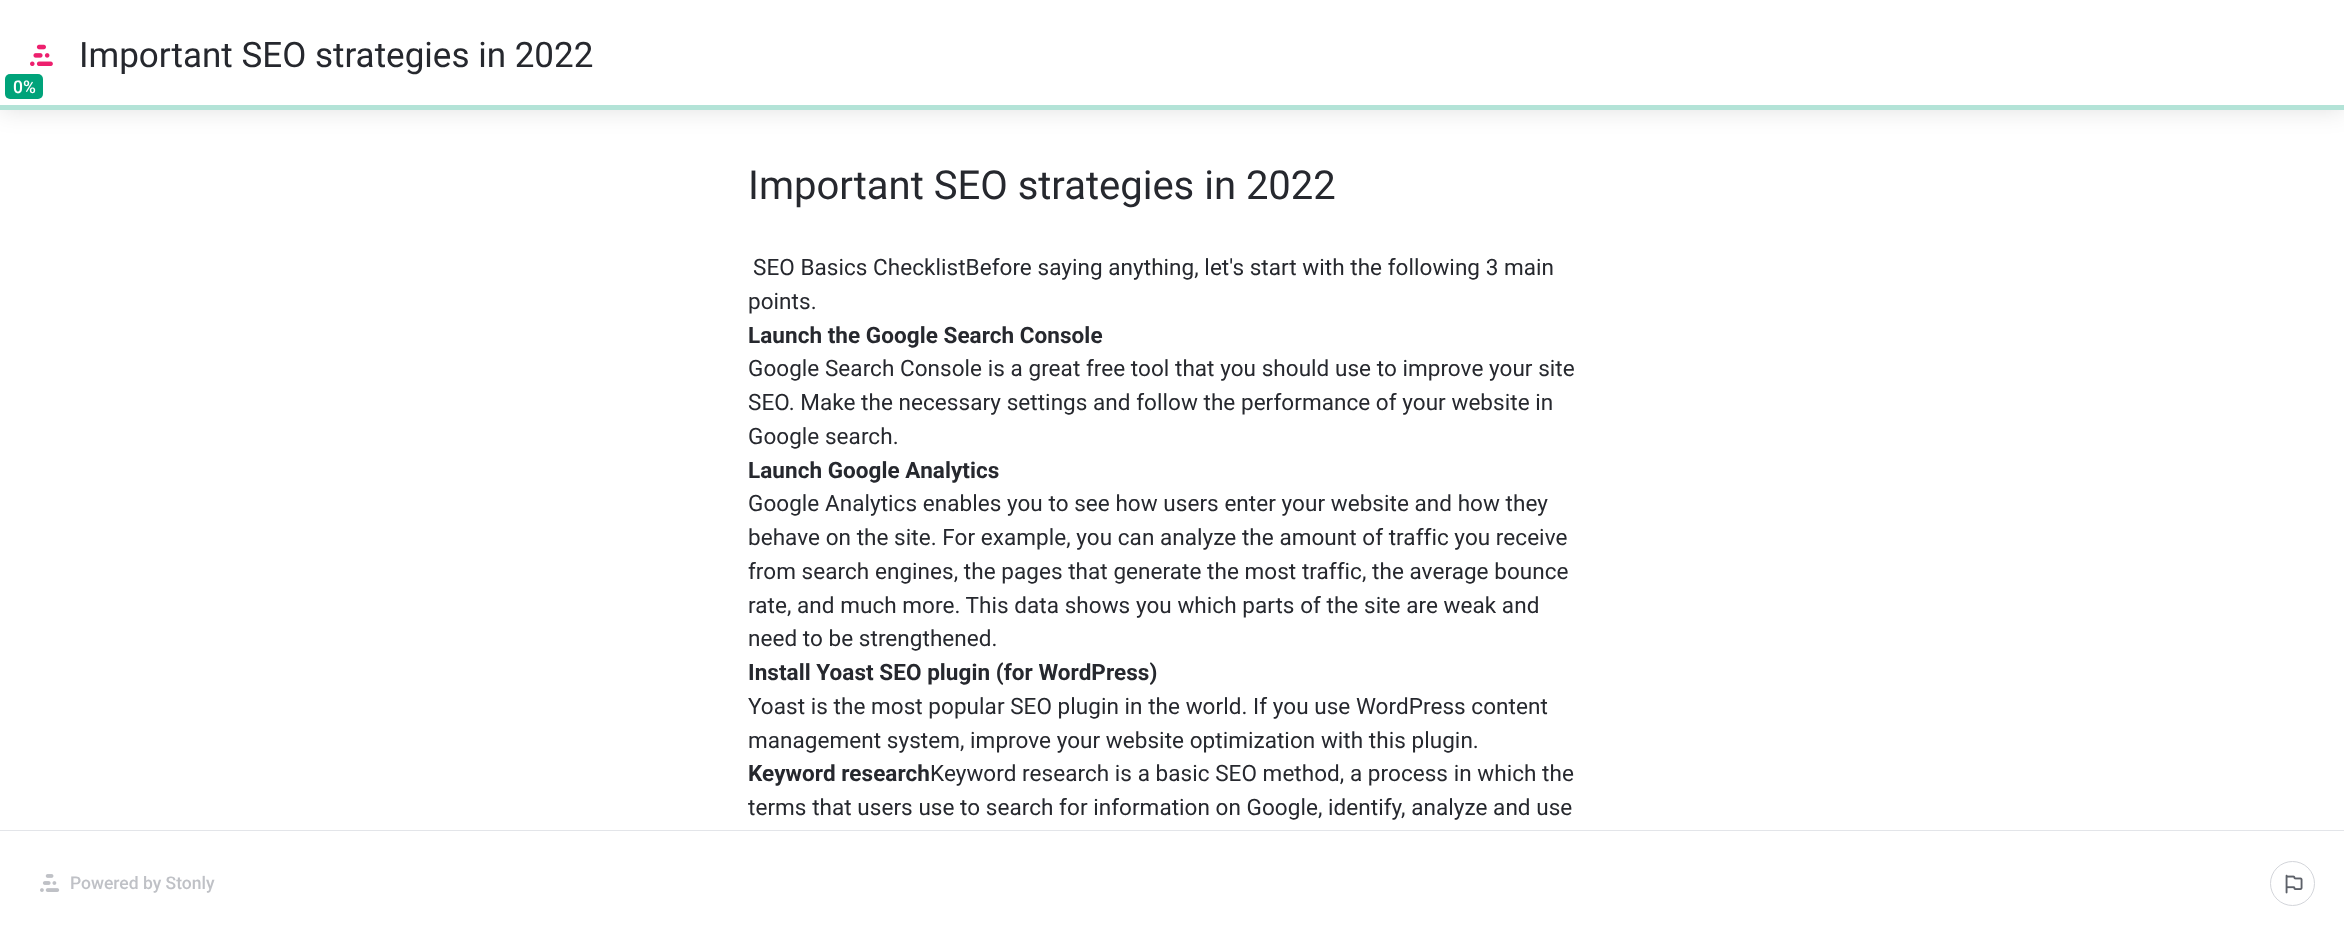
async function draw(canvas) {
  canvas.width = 2344;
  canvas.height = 935;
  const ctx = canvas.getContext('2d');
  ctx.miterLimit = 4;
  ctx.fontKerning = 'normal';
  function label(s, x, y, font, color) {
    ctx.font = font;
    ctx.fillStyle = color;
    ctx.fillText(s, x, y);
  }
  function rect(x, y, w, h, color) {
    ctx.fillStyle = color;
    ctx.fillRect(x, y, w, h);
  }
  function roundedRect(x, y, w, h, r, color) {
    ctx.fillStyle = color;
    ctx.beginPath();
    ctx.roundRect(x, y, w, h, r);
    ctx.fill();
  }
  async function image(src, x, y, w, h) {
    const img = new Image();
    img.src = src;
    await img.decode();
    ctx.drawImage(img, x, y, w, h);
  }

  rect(0, 0, 2344, 935, '#fff');
  ctx.fillStyle = '#0000001f';
  ctx.filter = 'blur(12.5px)';
  ctx.beginPath();
  ctx.rect(0, 0, 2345, 110);
  ctx.fill();
  ctx.filter = 'none';
  rect(0, 0, 2344, 105, '#fff');
  await image('assets/img1.png', 30, 44, 23, 22);
  label('Important SEO strategies in 2022', 79, 67, '35px Roboto', '#26282e');
  roundedRect(5, 74, 38, 25, 5, '#00a37a');
  label('0%', 13, 93, '500 17.5px Roboto', '#fff');
  rect(0, 105, 2344, 5, '#b3e3d7');
  label('Important SEO strategies in 2022', 748, 199, '40px Roboto', '#26282e');
  ctx.letterSpacing = '0.05px';
  label('SEO Basics ChecklistBefore saying anything, let\'s start with the following 3 main', 753, 275, '22.5px Roboto', '#26282e');
  label('points.', 748, 309, '22.5px Roboto', '#26282e');
  label('Launch the Google Search Console', 748, 343, 'bold 22.5px Roboto', '#26282e');
  label('Google Search Console is a great free tool that you should use to improve your site', 748, 376, '22.5px Roboto', '#26282e');
  label('SEO. Make the necessary settings and follow the performance of your website in', 748, 410, '22.5px Roboto', '#26282e');
  label('Google search.', 748, 444, '22.5px Roboto', '#26282e');
  label('Launch Google Analytics', 748, 478, 'bold 22.5px Roboto', '#26282e');
  label('Google Analytics enables you to see how users enter your website and how they', 748, 511, '22.5px Roboto', '#26282e');
  label('behave on the site. For example, you can analyze the amount of traffic you receive', 748, 545, '22.5px Roboto', '#26282e');
  label('from search engines, the pages that generate the most traffic, the average bounce', 748, 579, '22.5px Roboto', '#26282e');
  label('rate, and much more. This data shows you which parts of the site are weak and', 748, 613, '22.5px Roboto', '#26282e');
  label('need to be strengthened.', 748, 646, '22.5px Roboto', '#26282e');
  label('Install Yoast SEO plugin (for WordPress)', 748, 680, 'bold 22.5px Roboto', '#26282e');
  label('Yoast is the most popular SEO plugin in the world. If you use WordPress content', 748, 714, '22.5px Roboto', '#26282e');
  label('management system, improve your website optimization with this plugin.', 748, 748, '22.5px Roboto', '#26282e');
  label('Keyword research', 748, 781, 'bold 22.5px Roboto', '#26282e');
  label('Keyword research is a basic SEO method, a process in which the', 930, 781, '22.5px Roboto', '#26282e');
  label('terms that users use to search for information on Google, identify, analyze and use', 748, 815, '22.5px Roboto', '#26282e');
  rect(0, 830, 2344, 1, '#e3e5e9');
  await image('assets/img2.png', 40, 874, 20, 18);
  ctx.letterSpacing = '0px';
  label('Powered by Stonly', 70, 889, '500 17.5px Roboto', '#bfc1c6');
  ctx.beginPath();
  ctx.arc(2292.5, 883.5, 22, 0, 2 * Math.PI);
  ctx.strokeStyle = '#d3d5da';
  ctx.stroke();
  await image('assets/img3.png', 2285, 874, 18, 20);
}

draw(document.querySelector('canvas'));
